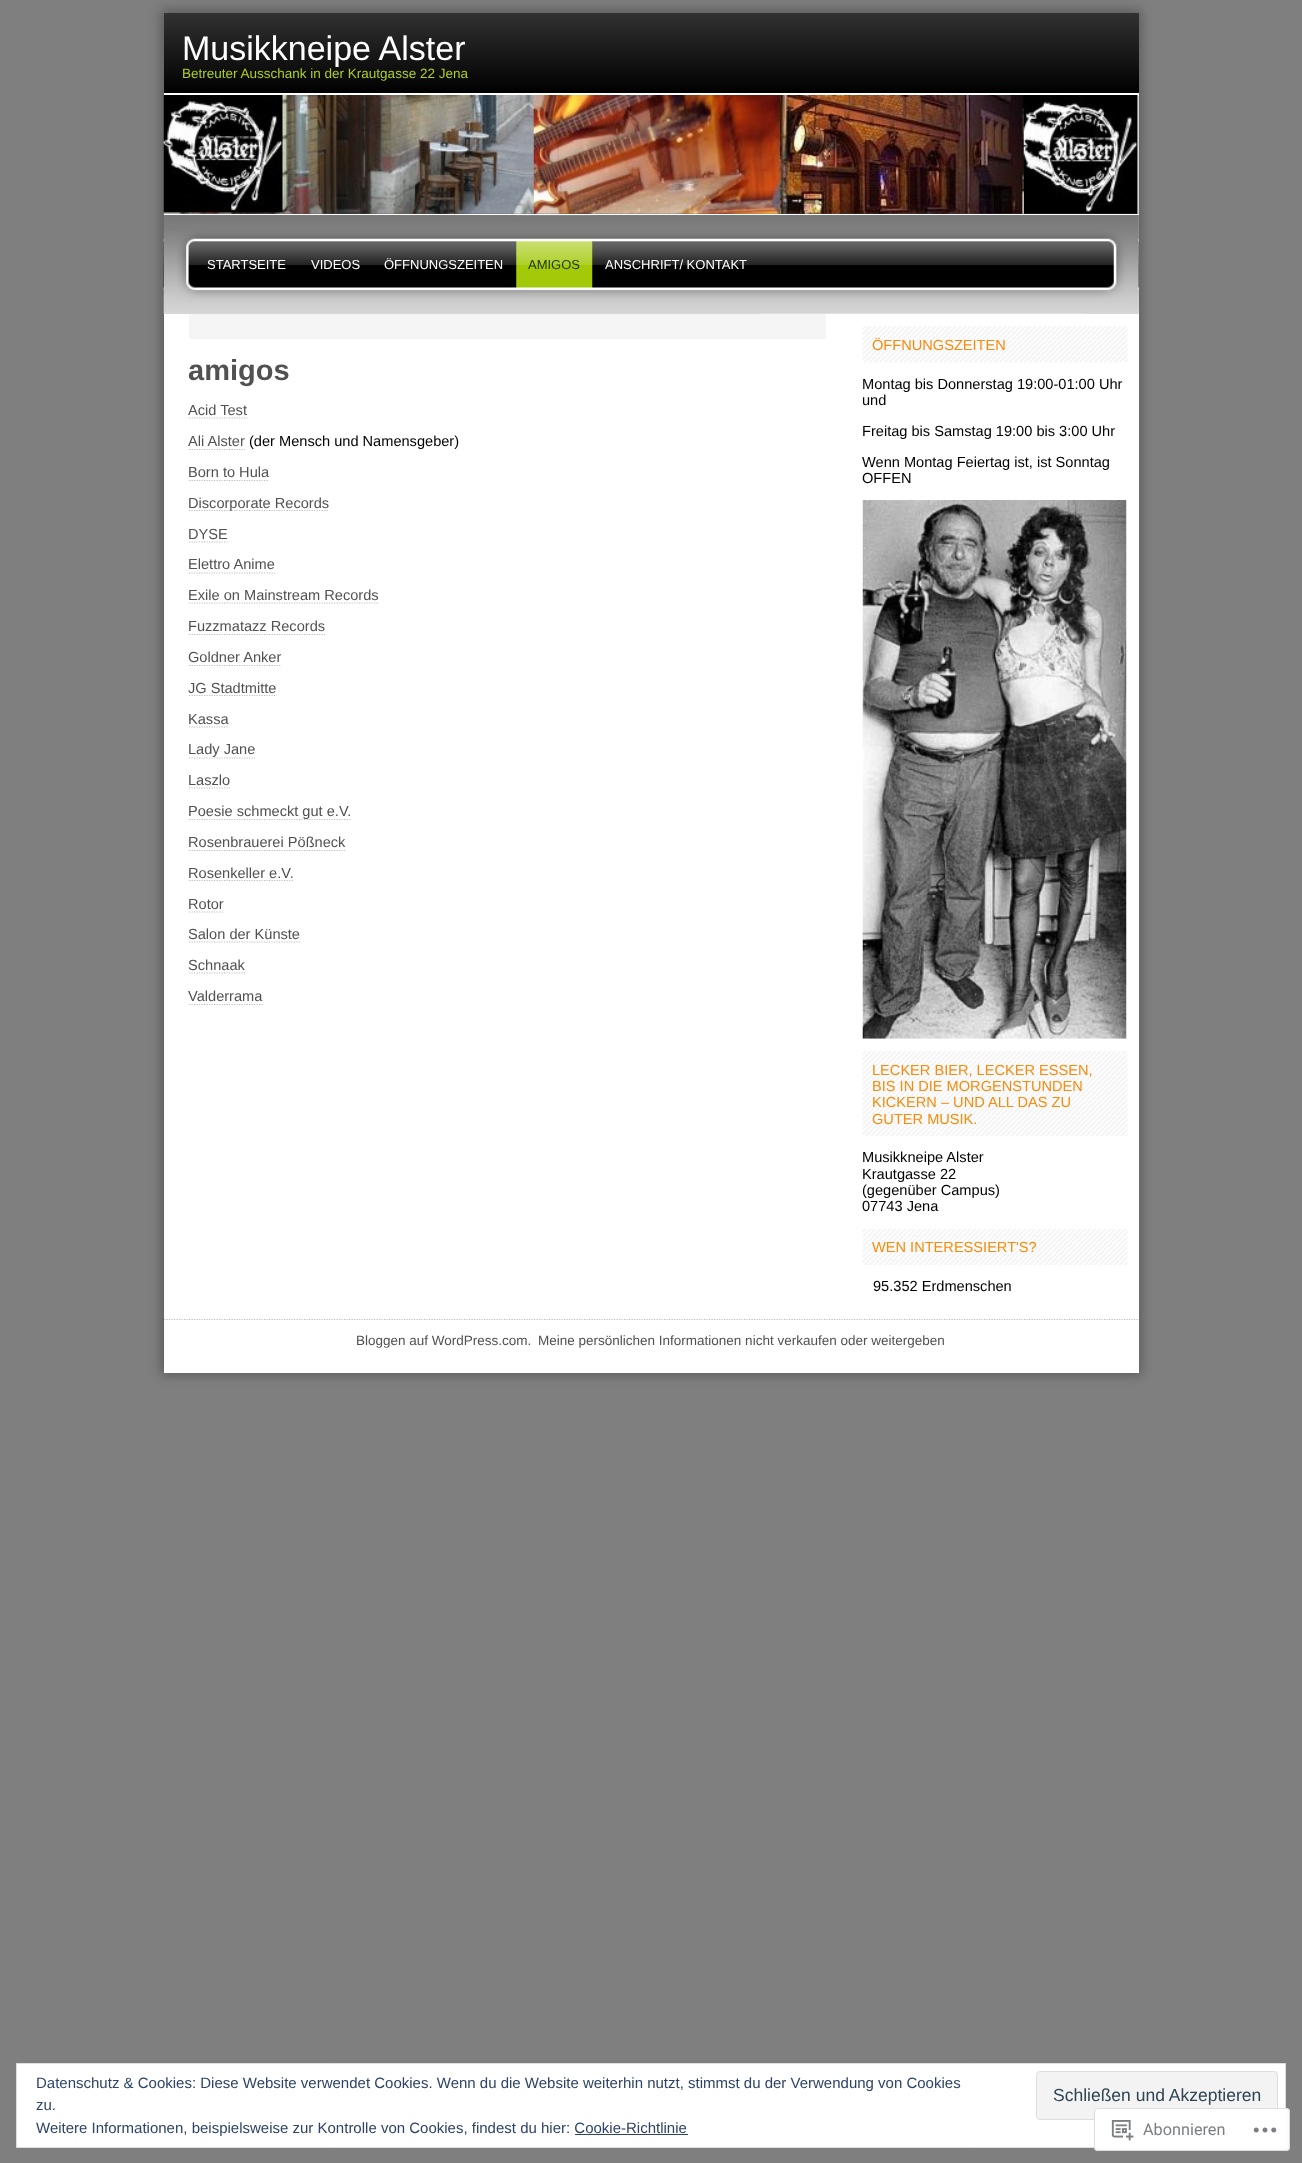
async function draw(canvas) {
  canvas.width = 1302;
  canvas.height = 2163;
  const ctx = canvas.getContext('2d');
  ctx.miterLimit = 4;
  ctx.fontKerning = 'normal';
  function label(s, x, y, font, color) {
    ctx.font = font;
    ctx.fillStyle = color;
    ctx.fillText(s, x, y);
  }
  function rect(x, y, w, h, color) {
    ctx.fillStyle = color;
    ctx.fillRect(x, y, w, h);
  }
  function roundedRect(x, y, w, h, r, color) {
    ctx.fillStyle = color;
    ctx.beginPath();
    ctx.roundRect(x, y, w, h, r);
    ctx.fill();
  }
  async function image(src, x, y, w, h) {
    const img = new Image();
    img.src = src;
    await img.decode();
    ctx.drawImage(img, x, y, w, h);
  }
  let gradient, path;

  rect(0, 0, 1302, 2163, '#7f7f7f');
  ctx.fillStyle = '#5a5a5a';
  ctx.filter = 'blur(6px)';
  ctx.beginPath();
  ctx.rect(161, 10, 980, 1365);
  ctx.fill();
  ctx.filter = 'none';
  gradient = ctx.createLinearGradient(651, 12, 651, 93);
  gradient.addColorStop(0, '#323232');
  gradient.addColorStop(1, '#000');
  ctx.fillStyle = gradient;
  ctx.fillRect(164, 13, 975, 80);
  rect(164, 93, 975, 3, '#fff');
  label('Musikkneipe Alster', 182, 60, '34px Liberation Sans', '#fff');
  label('Betreuter Ausschank in der Krautgasse 22 Jena', 182, 78, '13.5px Liberation Sans', '#adcf20');
  await image('assets/img1.png', 163, 95, 976, 119);
  rect(164, 214, 975, 1159, '#fff');
  await image('assets/img2.png', 163, 215, 976, 99);
  await image('assets/img3.png', 163, 231, 135, 83);
  label('STARTSEITE', 207, 269, '13px Liberation Sans', '#fff');
  await image('assets/img4.png', 297, 313, 76, 1);
  label('VIDEOS', 311, 269, '13px Liberation Sans', '#fff');
  await image('assets/img5.png', 372, 313, 145, 1);
  label('ÖFFNUNGSZEITEN', 384, 269, '13px Liberation Sans', '#fff');
  await image('assets/img6.png', 516, 215, 77, 99);
  label('AMIGOS', 528, 269, '13px Liberation Sans', '#1f3700');
  await image('assets/img7.png', 592, 241, 167, 73);
  label('ANSCHRIFT/ KONTAKT', 605, 269, '13px Liberation Sans', '#fff');
  await image('assets/img8.png', 1082, 215, 57, 99);
  rect(189, 314, 637, 25, '#f5f5f5');
  label('amigos', 188, 380, 'bold 29px Liberation Sans', '#515151');
  label('Acid Test', 188, 415, '14.6px Liberation Sans', '#515151');
  path = new Path2D('M189 418H247.5');
  ctx.strokeStyle = '#c0c0c0';
  ctx.lineWidth = 1.2;
  ctx.setLineDash([1.25, 1.25]);
  ctx.stroke(path);
  label('Ali Alster', 188, 446, '14.6px Liberation Sans', '#515151');
  path = new Path2D('M189 449.5H245');
  ctx.stroke(path);
  label('(der Mensch und Namensgeber)', 249, 446, '14.6px Liberation Sans', '#000');
  label('Born to Hula', 188, 477, '14.6px Liberation Sans', '#515151');
  path = new Path2D('M189 480.5H269');
  ctx.stroke(path);
  path = new Path2D('M189 510.5H329');
  ctx.stroke(path);
  label('Discorporate Records', 188, 508, '14.6px Liberation Sans', '#515151');
  label('DYSE', 188, 539, '14.6px Liberation Sans', '#515151');
  path = new Path2D('M189 542H227.5');
  ctx.stroke(path);
  label('Elettro Anime', 188, 569, '14.6px Liberation Sans', '#515151');
  path = new Path2D('M189 573H275');
  ctx.stroke(path);
  label('Exile on Mainstream Records', 188, 600, '14.6px Liberation Sans', '#515151');
  path = new Path2D('M189 603H379');
  ctx.stroke(path);
  label('Fuzzmatazz Records', 188, 631, '14.6px Liberation Sans', '#515151');
  path = new Path2D('M189 634.5H325');
  ctx.stroke(path);
  label('Goldner Anker', 188, 662, '14.6px Liberation Sans', '#515151');
  path = new Path2D('M189 665.5H281');
  ctx.stroke(path);
  label('JG Stadtmitte', 188, 693, '14.6px Liberation Sans', '#515151');
  path = new Path2D('M189 695.5H276');
  ctx.stroke(path);
  label('Kassa', 188, 724, '14.6px Liberation Sans', '#515151');
  path = new Path2D('M189 727H229');
  ctx.stroke(path);
  label('Lady Jane', 188, 754, '14.6px Liberation Sans', '#515151');
  path = new Path2D('M189 758H255');
  ctx.stroke(path);
  label('Laszlo', 188, 785, '14.6px Liberation Sans', '#515151');
  path = new Path2D('M189 788H230');
  ctx.stroke(path);
  path = new Path2D('M189 819.5H351');
  ctx.stroke(path);
  label('Poesie schmeckt gut e.V.', 188, 816, '14.6px Liberation Sans', '#515151');
  label('Rosenbrauerei Pößneck', 188, 847, '14.6px Liberation Sans', '#515151');
  path = new Path2D('M189 850.5H345');
  ctx.stroke(path);
  label('Rosenkeller e.V.', 188, 878, '14.6px Liberation Sans', '#515151');
  path = new Path2D('M189 880.5H294');
  ctx.stroke(path);
  label('Rotor', 188, 909, '14.6px Liberation Sans', '#515151');
  path = new Path2D('M189 912H224');
  ctx.stroke(path);
  label('Salon der Künste', 188, 939, '14.6px Liberation Sans', '#515151');
  path = new Path2D('M189 942H300');
  ctx.stroke(path);
  label('Schnaak', 188, 970, '14.6px Liberation Sans', '#515151');
  path = new Path2D('M189 973H245');
  ctx.stroke(path);
  label('Valderrama', 188, 1001, '14.6px Liberation Sans', '#515151');
  path = new Path2D('M189 1004.5H262.5');
  ctx.stroke(path);
  path = new Path2D('M164 1319.5H1139');
  ctx.stroke(path);
  rect(851, 1318, 287, 1, '#fff');
  await image('assets/img9.png', 862, 326, 266, 37);
  label('ÖFFNUNGSZEITEN', 872, 350, '14.6px Liberation Sans', '#f78b0c');
  label('Montag bis Donnerstag 19:00-01:00 Uhr', 862, 389, '14.6px Liberation Sans', '#000');
  label('und', 862, 405, '14.6px Liberation Sans', '#000');
  label('Freitag bis Samstag 19:00 bis 3:00 Uhr', 862, 436, '14.6px Liberation Sans', '#000');
  label('Wenn Montag Feiertag ist, ist Sonntag', 862, 467, '14.6px Liberation Sans', '#000');
  label('OFFEN', 862, 483, '14.6px Liberation Sans', '#000');
  await image('assets/img10.png', 862, 500, 265, 539);
  await image('assets/img11.png', 862, 1051, 266, 85);
  label('LECKER BIER, LECKER ESSEN,', 872, 1075, '14.6px Liberation Sans', '#f78b0c');
  label('BIS IN DIE MORGENSTUNDEN', 872, 1091, '14.6px Liberation Sans', '#f78b0c');
  label('KICKERN – UND ALL DAS ZU', 872, 1107, '14.6px Liberation Sans', '#f78b0c');
  label('GUTER MUSIK.', 872, 1124, '14.6px Liberation Sans', '#f78b0c');
  label('Musikkneipe Alster', 862, 1162, '14.6px Liberation Sans', '#000');
  label('Krautgasse 22', 862, 1179, '14.6px Liberation Sans', '#000');
  label('(gegenüber Campus)', 862, 1195, '14.6px Liberation Sans', '#000');
  label('07743 Jena', 862, 1211, '14.6px Liberation Sans', '#000');
  await image('assets/img12.png', 862, 1229, 266, 36);
  label('WEN INTERESSIERT\'S?', 872, 1252, '14.6px Liberation Sans', '#f78b0c');
  label('95.352 Erdmenschen', 873, 1291, '14.6px Liberation Sans', '#000');
  label('Bloggen auf WordPress.com.', 356, 1345, '13.5px Liberation Sans', '#515151');
  label('Meine persönlichen Informationen nicht verkaufen oder weitergeben', 538, 1345, '13.5px Liberation Sans', '#515151');
  ctx.fillStyle = '#fff';
  ctx.beginPath();
  ctx.rect(16.5, 2063.5, 1269, 84);
  ctx.fill();
  ctx.strokeStyle = '#dedede';
  ctx.lineWidth = 1;
  ctx.setLineDash([]);
  ctx.stroke();
  label('Datenschutz & Cookies: Diese Website verwendet Cookies. Wenn du die Website weiterhin nutzt, stimmst du der Verwendung von Cookies', 36, 2088, '15px Liberation Sans', '#2e4467');
  ctx.fillStyle = '#f3f3f3';
  ctx.beginPath();
  ctx.roundRect(1036.5, 2071.5, 241, 48, 3.5);
  ctx.fill();
  ctx.stroke();
  label('Schließen und Akzeptieren', 1053, 2101, '17.5px Liberation Sans', '#2e4453');
  label('zu.', 36, 2110, '15px Liberation Sans', '#2e4467');
  label('Weitere Informationen, beispielsweise zur Kontrolle von Cookies, findest du hier: Cookie-Richtlinie', 36, 2133, '15px Liberation Sans', '#2e4467');
  rect(575, 2134, 113, 1, '#2e4467');
  roundedRect(1094, 2108, 196, 43, 4, '#fffffffa');
  ctx.beginPath();
  ctx.roundRect(1094.5, 2108.5, 195, 42, 3.5);
  ctx.strokeStyle = '#dcdcdefa';
  ctx.stroke();
  await image('assets/img13.png', 1111, 2120, 23, 21);
  label('Abonnieren', 1143, 2135, '16.25px Roboto', '#7b7f85');
  await image('assets/img14.png', 1253, 2127, 24, 6);
}

draw(document.querySelector('canvas'));
